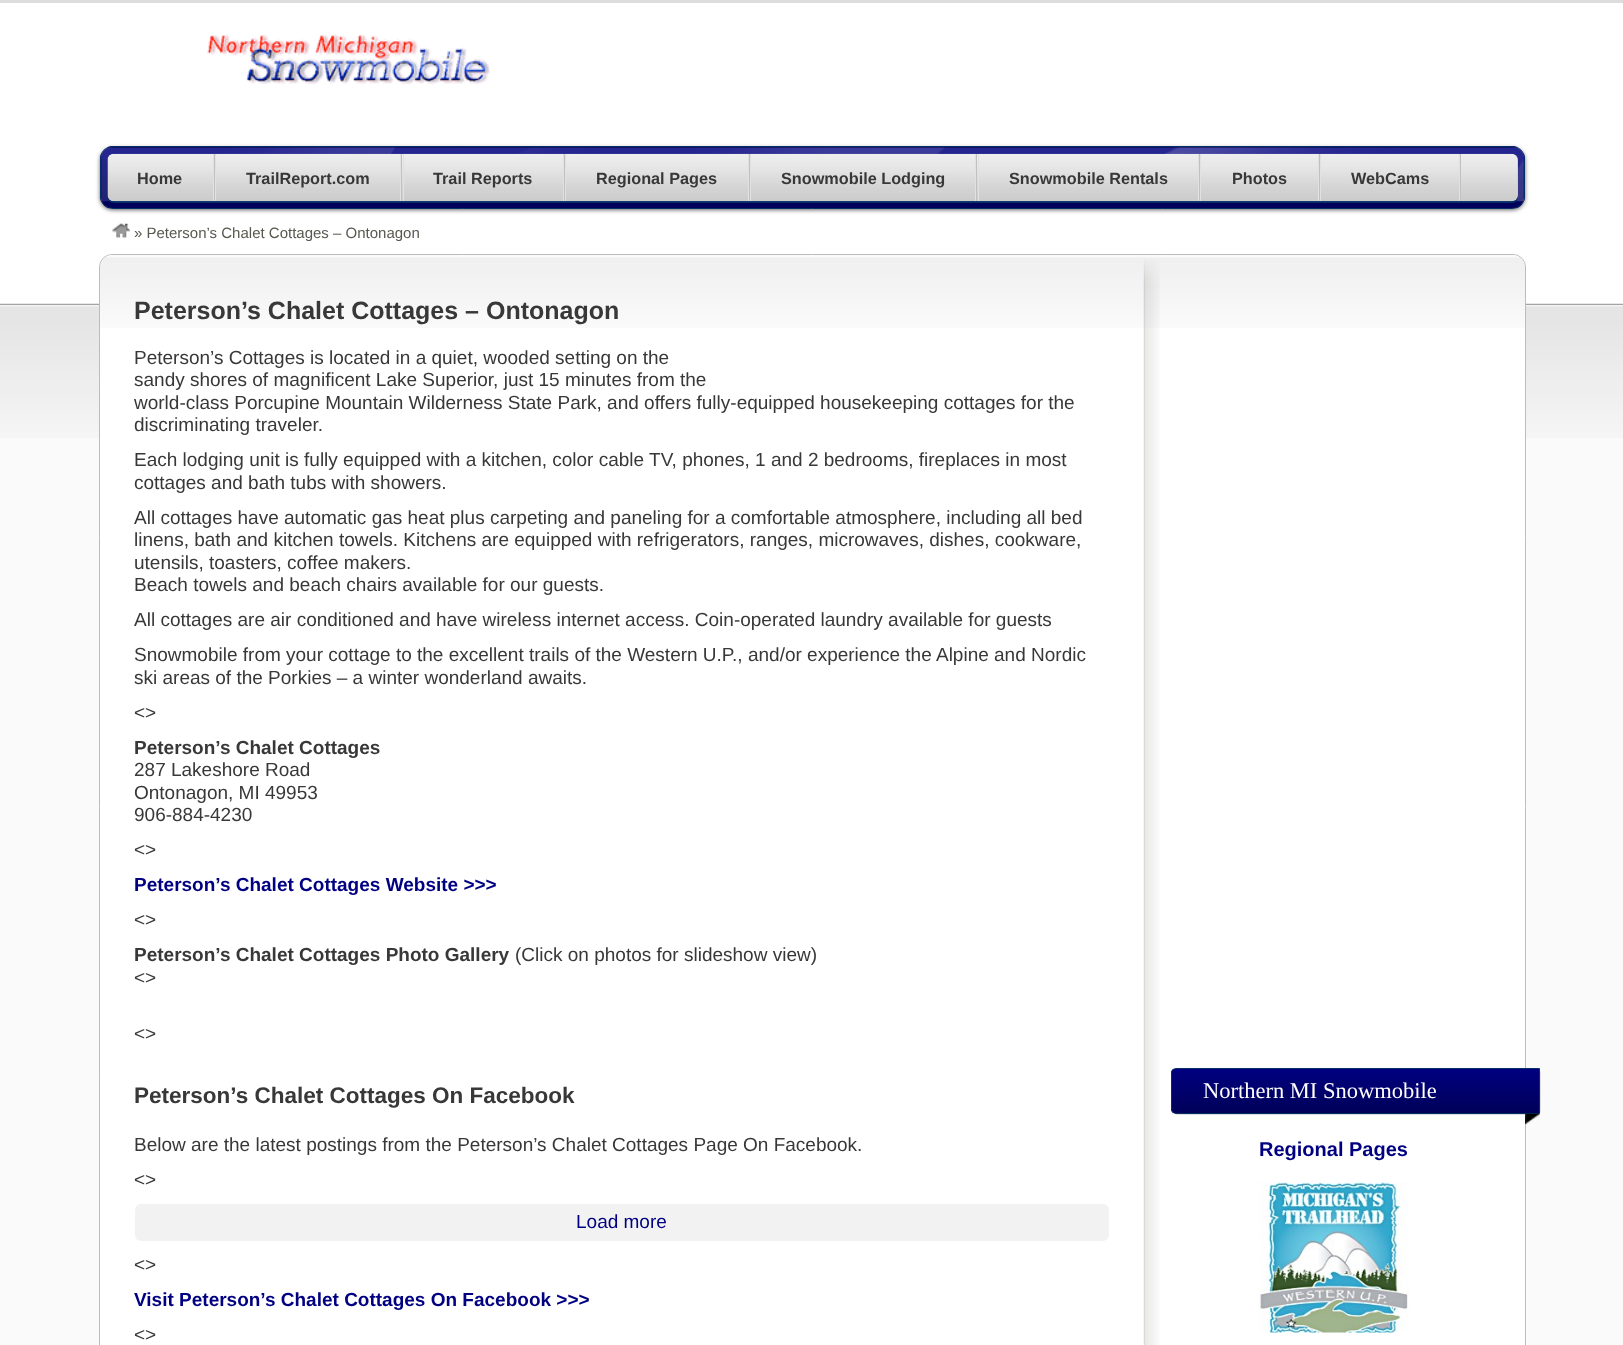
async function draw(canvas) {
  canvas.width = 1623;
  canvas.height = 1345;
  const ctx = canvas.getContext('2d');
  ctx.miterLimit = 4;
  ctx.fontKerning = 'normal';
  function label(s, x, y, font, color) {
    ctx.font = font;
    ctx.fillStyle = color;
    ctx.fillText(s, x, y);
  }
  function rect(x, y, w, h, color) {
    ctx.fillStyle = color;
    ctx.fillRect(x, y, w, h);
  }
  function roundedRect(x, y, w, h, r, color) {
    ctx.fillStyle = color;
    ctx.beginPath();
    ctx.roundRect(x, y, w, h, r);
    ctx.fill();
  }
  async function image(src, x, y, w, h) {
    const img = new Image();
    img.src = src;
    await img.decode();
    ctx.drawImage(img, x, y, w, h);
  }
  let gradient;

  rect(0, 0, 1623, 1345, '#fff');
  rect(0, 0, 1623, 3, '#ddd');
  await image('assets/img1.png', 207, 34, 283, 51);
  ctx.fillStyle = '#666';
  ctx.filter = 'blur(2px)';
  ctx.beginPath();
  ctx.roundRect(100, 148, 1425, 62, 13);
  ctx.fill();
  ctx.filter = 'none';
  ctx.save();
  ctx.beginPath();
  ctx.roundRect(100, 146, 1425, 63, 13);
  ctx.clip();
  gradient = ctx.createLinearGradient(813, 87, 813, 148);
  gradient.addColorStop(0, '#000080');
  gradient.addColorStop(1, '#000059');
  ctx.fillStyle = gradient;
  ctx.fillRect(100, 146, 1425, 2);
  gradient = ctx.createLinearGradient(813, 147, 813, 208);
  gradient.addColorStop(0, '#000080');
  gradient.addColorStop(1, '#000059');
  ctx.fillStyle = gradient;
  ctx.fillRect(100, 148, 1425, 60);
  ctx.restore();
  ctx.beginPath();
  ctx.roundRect(100.5, 146.5, 1424, 62, 12.5);
  ctx.strokeStyle = '#062f66';
  ctx.stroke();
  await image('assets/img2.png', 101, 147, 1423, 55);
  ctx.fillStyle = '#062f66';
  ctx.filter = 'blur(0.5px)';
  ctx.beginPath();
  ctx.roundRect(108, 155, 1410, 48, 6);
  ctx.fill();
  ctx.filter = 'none';
  roundedRect(108, 154, 1410, 47, 6, '#ccc');
  await image('assets/img3.png', 107, 153, 1411, 49);
  rect(214, 154, 1, 47, '#c1c1c1');
  rect(213, 154, 1, 47, '#e1e1e1');
  label('Home', 137, 184, 'bold 16.25px Liberation Sans', '#383838');
  rect(401, 154, 1, 47, '#c1c1c1');
  rect(215, 154, 1, 47, '#e1e1e1');
  rect(400, 154, 1, 47, '#e1e1e1');
  label('TrailReport.com', 246, 184, 'bold 16.25px Liberation Sans', '#383838');
  rect(564, 154, 1, 47, '#c1c1c1');
  rect(403, 154, 1, 47, '#e1e1e1');
  rect(563, 154, 1, 47, '#e1e1e1');
  label('Trail Reports', 433, 184, 'bold 16.25px Liberation Sans', '#383838');
  rect(749, 154, 1, 47, '#c1c1c1');
  rect(565, 154, 1, 47, '#e1e1e1');
  rect(748, 154, 1, 47, '#e1e1e1');
  label('Regional Pages', 596, 184, 'bold 16.25px Liberation Sans', '#383838');
  rect(976, 154, 1, 47, '#c1c1c1');
  rect(750, 154, 1, 47, '#e1e1e1');
  rect(975, 154, 1, 47, '#e1e1e1');
  label('Snowmobile Lodging', 781, 184, 'bold 16.25px Liberation Sans', '#383838');
  rect(1199, 154, 1, 47, '#c1c1c1');
  rect(978, 154, 1, 47, '#e1e1e1');
  rect(1198, 154, 1, 47, '#e1e1e1');
  label('Snowmobile Rentals', 1009, 184, 'bold 16.25px Liberation Sans', '#383838');
  rect(1319, 154, 1, 47, '#c1c1c1');
  rect(1200, 154, 1, 47, '#e1e1e1');
  rect(1318, 154, 1, 47, '#e1e1e1');
  label('Photos', 1232, 184, 'bold 16.25px Liberation Sans', '#383838');
  rect(1460, 154, 1, 47, '#c1c1c1');
  rect(1320, 154, 1, 47, '#e1e1e1');
  rect(1459, 154, 1, 47, '#e1e1e1');
  label('WebCams', 1351, 184, 'bold 16.25px Liberation Sans', '#383838');
  await image('assets/img4.png', 112, 223, 18, 15);
  label('» Peterson’s Chalet Cottages – Ontonagon', 134, 238, '15px Liberation Sans', '#59584f');
  rect(0, 438, 1623, 907, '#fafafa');
  await image('assets/img5.png', 0, 303, 1623, 135);
  roundedRect(99, 254, 1427, 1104, 13, '#fff');
  await image('assets/img6.png', 1143, 258, 17, 1087);
  ctx.beginPath();
  ctx.roundRect(99.5, 254.5, 1426, 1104, 12.5);
  ctx.strokeStyle = '#bdbcbd';
  ctx.stroke();
  await image('assets/img7.png', 100, 255, 1425, 73);
  label('Peterson’s Chalet Cottages – Ontonagon', 134, 319, 'bold 25px Liberation Sans', '#383838');
  label('Peterson’s Cottages is located in a quiet, wooded setting on the', 134, 364, '19px Liberation Sans', '#383838');
  label('sandy shores of magnificent Lake Superior, just 15 minutes from the', 134, 386, '19px Liberation Sans', '#383838');
  label('world-class Porcupine Mountain Wilderness State Park, and offers fully-equipped housekeeping cottages for the', 134, 409, '19px Liberation Sans', '#383838');
  label('discriminating traveler.', 134, 431, '19px Liberation Sans', '#383838');
  label('Each lodging unit is fully equipped with a kitchen, color cable TV, phones, 1 and 2 bedrooms, fireplaces in most', 134, 466, '19px Liberation Sans', '#383838');
  label('cottages and bath tubs with showers.', 134, 489, '19px Liberation Sans', '#383838');
  label('All cottages have automatic gas heat plus carpeting and paneling for a comfortable atmosphere, including all bed', 134, 524, '19px Liberation Sans', '#383838');
  label('linens, bath and kitchen towels. Kitchens are equipped with refrigerators, ranges, microwaves, dishes, cookware,', 134, 546, '19px Liberation Sans', '#383838');
  label('utensils, toasters, coffee makers.', 134, 569, '19px Liberation Sans', '#383838');
  label('Beach towels and beach chairs available for our guests.', 134, 591, '19px Liberation Sans', '#383838');
  label('All cottages are air conditioned and have wireless internet access. Coin-operated laundry available for guests', 134, 626, '19px Liberation Sans', '#383838');
  label('Snowmobile from your cottage to the excellent trails of the Western U.P., and/or experience the Alpine and Nordic', 134, 661, '19px Liberation Sans', '#383838');
  label('ski areas of the Porkies – a winter wonderland awaits.', 134, 684, '19px Liberation Sans', '#383838');
  label('<>', 134, 719, '19px Liberation Sans', '#383838');
  label('Peterson’s Chalet Cottages', 134, 754, 'bold 19px Liberation Sans', '#383838');
  label('287 Lakeshore Road', 134, 776, '19px Liberation Sans', '#383838');
  label('Ontonagon, MI 49953', 134, 799, '19px Liberation Sans', '#383838');
  label('906-884-4230', 134, 821, '19px Liberation Sans', '#383838');
  label('<>', 134, 856, '19px Liberation Sans', '#383838');
  label('Peterson’s Chalet Cottages Website >>>', 134, 891, 'bold 19px Liberation Sans', '#000080');
  label('<>', 134, 926, '19px Liberation Sans', '#383838');
  label('Peterson’s Chalet Cottages Photo Gallery', 134, 961, 'bold 19px Liberation Sans', '#383838');
  label('(Click on photos for slideshow view)', 515, 961, '19px Liberation Sans', '#383838');
  label('<>', 134, 984, '19px Liberation Sans', '#383838');
  label('<>', 134, 1040, '19px Liberation Sans', '#383838');
  label('Peterson’s Chalet Cottages On Facebook', 134, 1103, 'bold 22.5px Liberation Sans', '#383838');
  label('Below are the latest postings from the Peterson’s Chalet Cottages Page On Facebook.', 134, 1151, '19px Liberation Sans', '#383838');
  label('<>', 134, 1186, '19px Liberation Sans', '#383838');
  roundedRect(135, 1204, 974, 37, 6, '#f2f2f2');
  label('Load more', 576, 1228, '19px Liberation Sans', '#000080');
  label('<>', 134, 1271, '19px Liberation Sans', '#383838');
  label('Visit Peterson’s Chalet Cottages On Facebook >>>', 134, 1306, 'bold 19px Liberation Sans', '#000080');
  label('<>', 134, 1341, '19px Liberation Sans', '#383838');
  ctx.fillStyle = '#ddd';
  ctx.filter = 'blur(0.5px)';
  ctx.beginPath();
  ctx.roundRect(1173, 1069, 368, 46, 5);
  ctx.fill();
  ctx.filter = 'none';
  ctx.save();
  ctx.beginPath();
  ctx.roundRect(1171, 1068, 369, 46, [5, 0, 0, 5]);
  ctx.clip();
  gradient = ctx.createLinearGradient(1173, 1069, 1173, 1113);
  gradient.addColorStop(0, '#000080');
  gradient.addColorStop(1, '#000059');
  ctx.fillStyle = gradient;
  ctx.fillRect(1171, 1069, 368, 44);
  ctx.restore();
  ctx.beginPath();
  ctx.roundRect(1171.5, 1068.5, 368, 45, [4.5, 0, 0, 4.5]);
  ctx.strokeStyle = '#062f66';
  ctx.stroke();
  await image('assets/img8.png', 1525, 1113, 15, 12);
  label('Northern MI Snowmobile', 1203, 1098, '22.5px Liberation Serif', '#fff');
  label('Regional Pages', 1259, 1156, 'bold 20px Liberation Sans', '#000080');
  await image('assets/img9.png', 1259, 1182, 150, 151);
}

draw(document.querySelector('canvas'));
